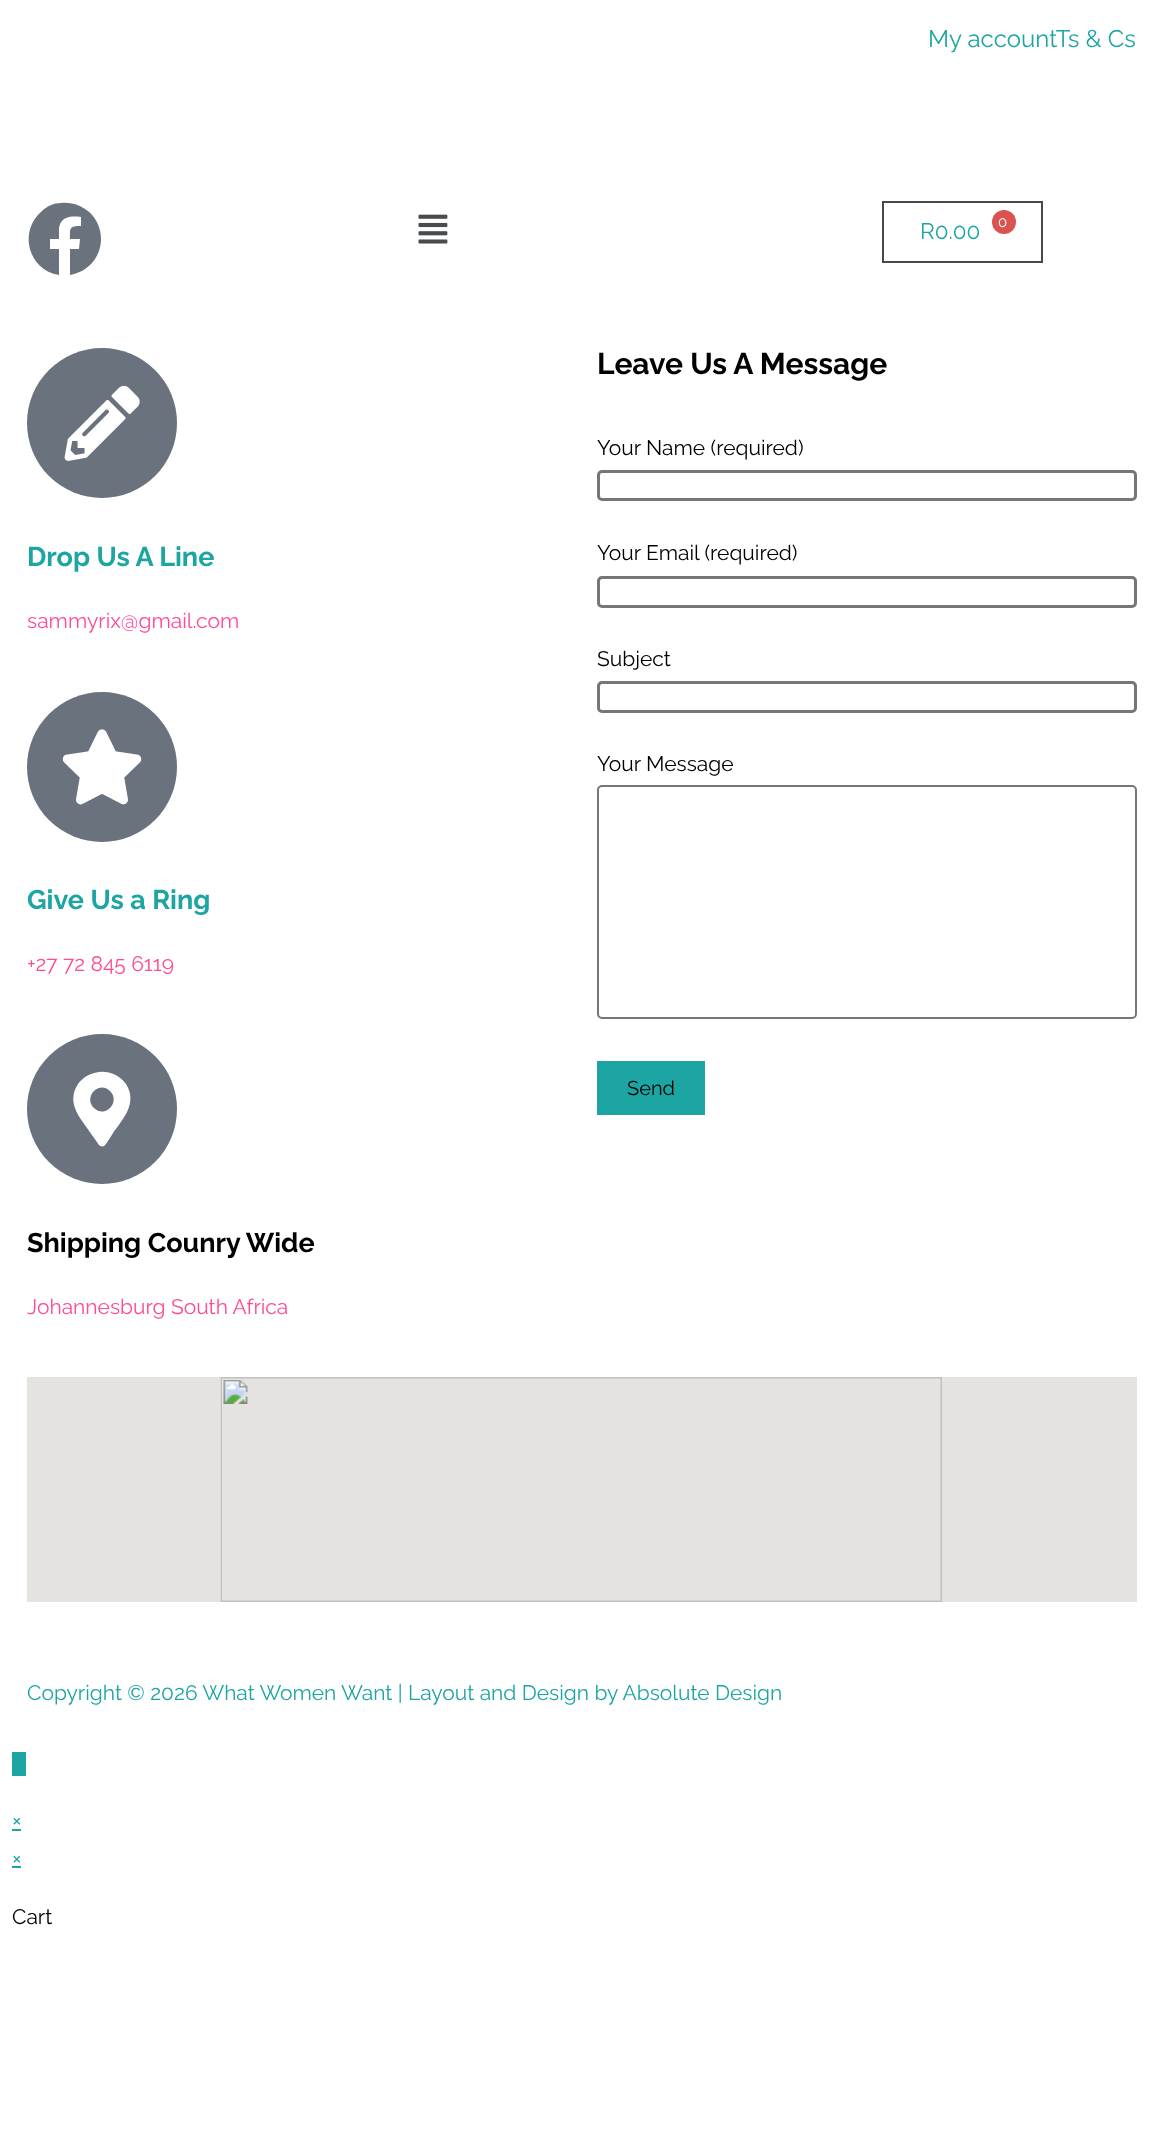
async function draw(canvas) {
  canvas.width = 1163;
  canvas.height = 2139;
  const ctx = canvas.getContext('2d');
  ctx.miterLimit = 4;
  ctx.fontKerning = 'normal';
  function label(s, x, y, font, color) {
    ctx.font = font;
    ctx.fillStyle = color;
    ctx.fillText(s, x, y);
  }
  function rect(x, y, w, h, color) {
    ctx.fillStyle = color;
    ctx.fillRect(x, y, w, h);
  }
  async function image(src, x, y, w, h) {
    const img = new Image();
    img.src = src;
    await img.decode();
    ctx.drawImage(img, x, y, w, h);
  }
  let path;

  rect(0, 0, 1163, 2139, '#fff');
  label('My accountTs & Cs', 928, 47, '24px Raleway', '#1ca5a3');
  ctx.fillStyle = '#69727d';
  path = new Path2D('M101 239C101 257 88 272 70 275V249H79L80 239H70C70 228 69 226 81 226V217C71 216 61 216 59 228V239H50V249H59V275C28 270 18 231 42 211C47 206 54 203 61 203C69 202 78 204 85 209C95 215 101 227 101 239Z');
  ctx.fill(path);
  await image('assets/img1.png', 418, 214, 30, 30);
  ctx.strokeStyle = '#4d4848';
  ctx.lineWidth = 2;
  ctx.strokeRect(883, 202, 159, 60);
  label('R0.00', 920, 239, '22.5px Raleway', '#1ca5a3');
  ctx.fillStyle = '#d9534f';
  ctx.beginPath();
  ctx.arc(1004, 222, 12, 0, 2 * Math.PI);
  ctx.fill();
  label('0', 998, 227, '15px Raleway', '#fff');
  ctx.fillStyle = '#69727d';
  ctx.beginPath();
  ctx.arc(102, 423, 75, 0, 2 * Math.PI);
  ctx.fill();
  await image('assets/img2.png', 64, 385, 76, 76);
  label('Drop Us A Line', 27, 566, 'bold 27px Raleway', '#1ca5a3');
  label('sammyrix@gmail.com', 27, 628, '21px Raleway', '#ff4a96');
  ctx.fillStyle = '#69727d';
  ctx.beginPath();
  ctx.arc(102, 767, 75, 0, 2 * Math.PI);
  ctx.fill();
  await image('assets/img3.png', 62, 729, 80, 76);
  label('Give Us a Ring', 27, 909, 'bold 27px Raleway', '#1ca5a3');
  label('+27 72 845 6119', 27, 971, '21px Raleway', '#ff4a96');
  ctx.fillStyle = '#69727d';
  ctx.beginPath();
  ctx.arc(102, 1109, 75, 0, 2 * Math.PI);
  ctx.fill();
  ctx.fillStyle = '#fff';
  path = new Path2D('M99 1145L87 1128C82 1121 76 1113 74 1105C68 1075 108 1059 126 1084C138 1103 123 1119 113 1133C111 1136 106 1145 104 1146C102 1147 100 1146 99 1145ZM94 1108C105 1119 121 1102 110 1091C99 1080 83 1097 94 1108Z');
  ctx.fill(path);
  label('Shipping Counry Wide', 27, 1252, 'bold 27px Raleway', '#000');
  label('Johannesburg South Africa', 27, 1314, '21px Raleway', '#ff4a96');
  label('Leave Us A Message', 597, 374, 'bold 30px Raleway', '#000');
  label('Your Name (required)', 597, 455, '21px Raleway', '#000');
  ctx.beginPath();
  ctx.roundRect(598.5, 471.5, 537, 28, 3.5);
  ctx.strokeStyle = '#767676';
  ctx.lineWidth = 3;
  ctx.stroke();
  label('Your Email (required)', 597, 560, '21px Raleway', '#000');
  ctx.beginPath();
  ctx.roundRect(598.5, 577.5, 537, 29, 3.5);
  ctx.stroke();
  label('Subject', 597, 666, '21px Raleway', '#000');
  ctx.beginPath();
  ctx.roundRect(598.5, 682.5, 537, 29, 3.5);
  ctx.stroke();
  label('Your Message', 597, 771, '21px Raleway', '#000');
  ctx.beginPath();
  ctx.roundRect(598, 786, 538, 232, 4);
  ctx.lineWidth = 2;
  ctx.stroke();
  rect(597, 1061, 108, 54, '#1ca5a3');
  label('Send', 627, 1095, '20px Raleway', '#000');
  await image('assets/img4.png', 27, 1377, 1110, 225);
  label('Copyright © 2026 What Women Want | Layout and Design by Absolute Design', 27, 1700, '21px Raleway', '#1ca5a3');
  rect(12, 1752, 14, 24, '#1ca5a3');
  label('×', 12, 1827, '21px Raleway', '#1ca5a3');
  rect(12, 1829, 9, 2, '#1ca5a3');
  label('×', 12, 1865, '21px Raleway', '#1ca5a3');
  rect(12, 1866, 9, 2, '#1ca5a3');
  label('Cart', 12, 1924, '21px Raleway', '#000');
}

draw(document.querySelector('canvas'));
